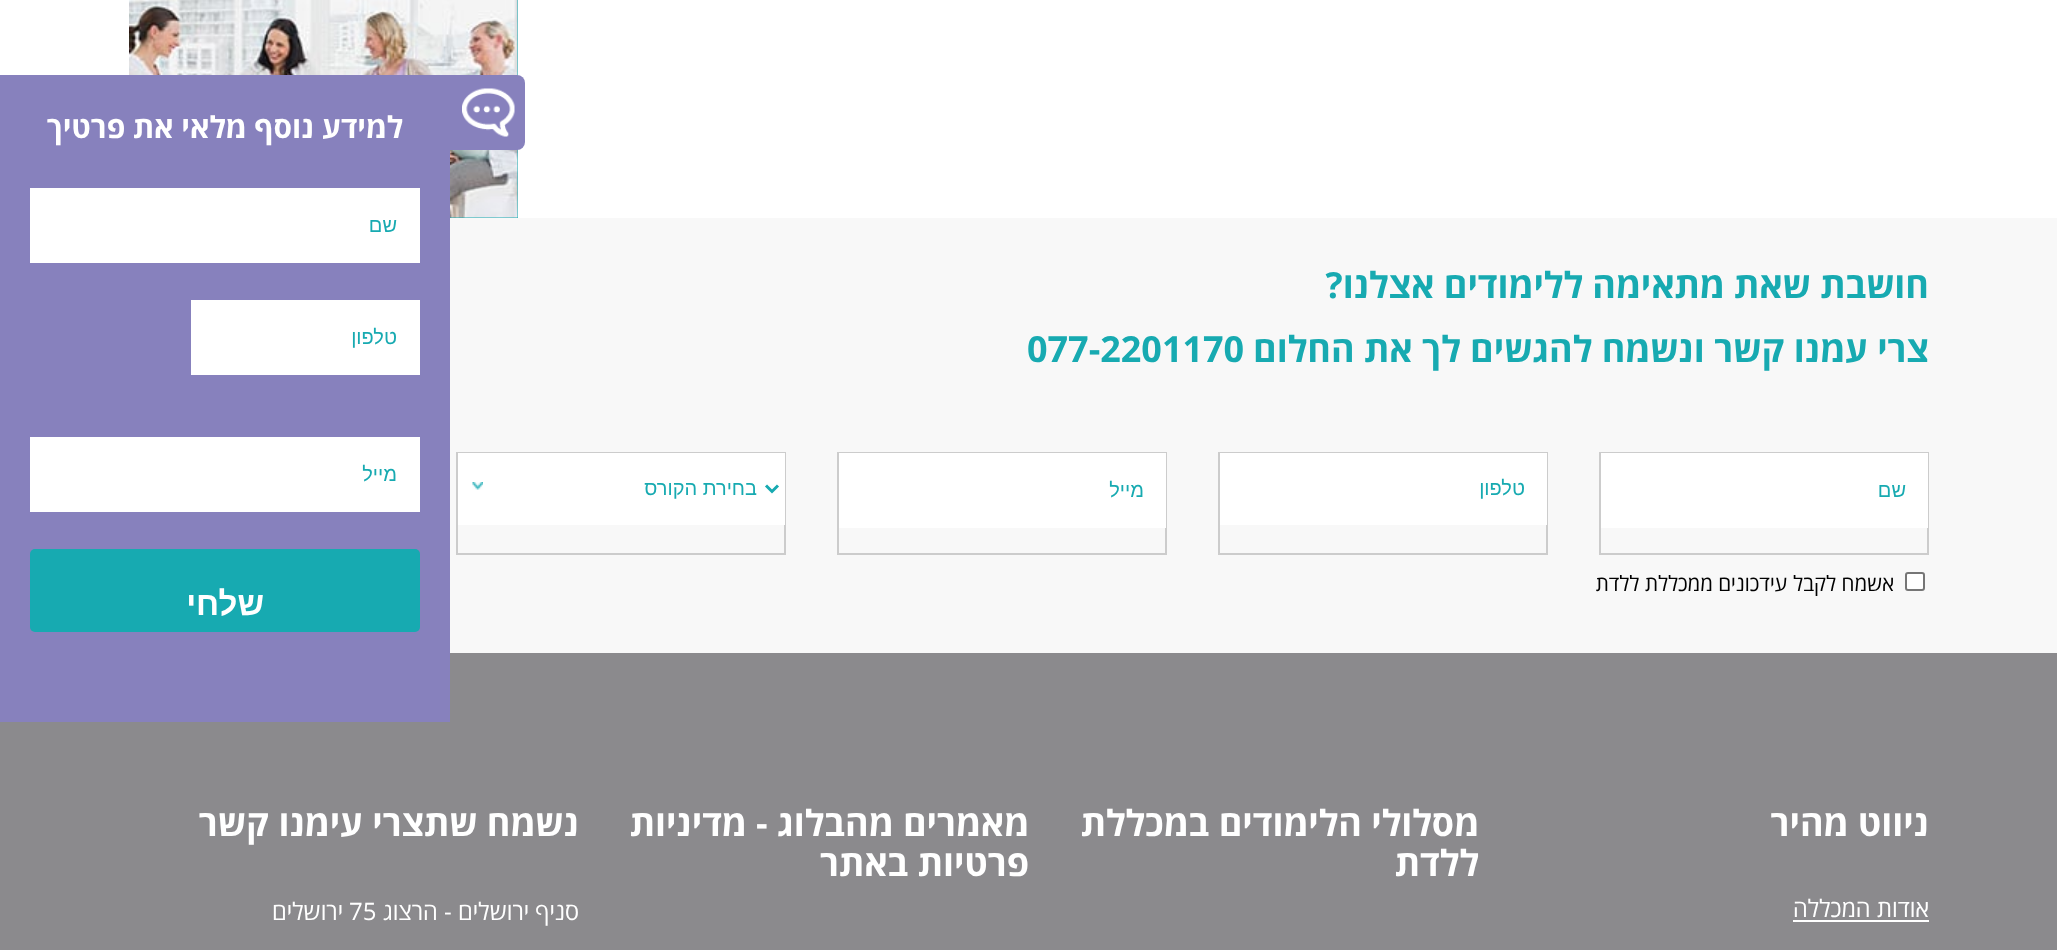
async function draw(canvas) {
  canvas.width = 2057;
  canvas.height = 950;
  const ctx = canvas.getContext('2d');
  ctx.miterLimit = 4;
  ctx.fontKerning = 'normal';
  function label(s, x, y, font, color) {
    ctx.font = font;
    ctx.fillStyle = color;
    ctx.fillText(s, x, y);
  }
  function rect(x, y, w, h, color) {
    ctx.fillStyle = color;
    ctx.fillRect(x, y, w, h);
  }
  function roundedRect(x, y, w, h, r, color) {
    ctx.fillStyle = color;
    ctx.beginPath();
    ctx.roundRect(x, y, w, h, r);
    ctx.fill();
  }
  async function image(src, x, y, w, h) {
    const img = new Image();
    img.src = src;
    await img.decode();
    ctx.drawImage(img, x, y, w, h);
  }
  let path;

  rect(0, 0, 2057, 950, '#fff');
  rect(0, 653, 2057, 297, '#8b8a8d');
  rect(450, 0, 68, 218, '#17aab1');
  await image('assets/img2.png', 129, 0, 389, 218);
  ctx.fillStyle = '#8781bd';
  ctx.beginPath();
  ctx.roundRect(450, 75, 75, 75, [0, 8, 8, 0]);
  ctx.fill();
  await image('assets/img1.png', 462, 88, 53, 49);
  rect(0, 75, 450, 647, '#8781bd');
  ctx.direction = 'rtl';
  label('למידע נוסף מלאי את פרטיך', 403, 138, 'bold 30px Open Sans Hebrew', '#fff');
  rect(30, 188, 390, 75, '#fff');
  label('שם', 397, 232, '20px Liberation Sans', '#17aab1');
  rect(191, 300, 229, 75, '#fff');
  label('טלפון', 397, 344, '20px Liberation Sans', '#17aab1');
  rect(30, 437, 390, 75, '#fff');
  label('מייל', 397, 481, '20px Liberation Sans', '#17aab1');
  roundedRect(30, 549, 390, 83, 5, '#17aab1');
  label('שלחי', 264, 615, 'bold 33px Liberation Sans', '#fff');
  label('ניווט מהיר', 1929, 836, 'bold 36px Open Sans Hebrew', '#fff');
  label('אודות המכללה', 1929, 917, '24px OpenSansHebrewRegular', '#fff');
  rect(1793, 920, 136, 2, '#fff');
  label('מסלולי הלימודים במכללת', 1479, 836, 'bold 36px Open Sans Hebrew', '#fff');
  label('ללדת', 1479, 876, 'bold 36px Open Sans Hebrew', '#fff');
  label('מאמרים מהבלוג - מדיניות', 1029, 836, 'bold 36px Open Sans Hebrew', '#fff');
  label('פרטיות באתר', 1029, 876, 'bold 36px Open Sans Hebrew', '#fff');
  label('נשמח שתצרי עימנו קשר', 579, 836, 'bold 36px Open Sans Hebrew', '#fff');
  label('סניף ירושלים - הרצוג', 579, 920, '24px OpenSansHebrewRegular', '#fff');
  ctx.direction = 'ltr';
  label('75', 349, 920, '24px OpenSansHebrewRegular', '#fff');
  ctx.direction = 'rtl';
  label('ירושלים', 343, 920, '24px OpenSansHebrewRegular', '#fff');
  rect(450, 218, 1607, 435, '#f8f8f8');
  label('חושבת שאת מתאימה ללימודים אצלנו?', 1929, 298, 'bold 36px Open Sans Hebrew', '#17aab1');
  label('צרי עמנו קשר ונשמח להגשים לך את החלום', 1929, 362, 'bold 36px Open Sans Hebrew', '#17aab1');
  ctx.direction = 'ltr';
  label('077-2201170', 1027, 362, 'bold 36px Open Sans Hebrew', '#17aab1');
  ctx.strokeStyle = '#ccc';
  ctx.lineWidth = 2;
  ctx.strokeRect(1600, 453, 328, 101);
  rect(1601, 453, 327, 75, '#fff');
  ctx.direction = 'rtl';
  label('שם', 1906, 497, '20px Liberation Sans', '#17aab1');
  ctx.strokeRect(1219, 453, 328, 101);
  rect(1220, 453, 327, 72, '#fff');
  label('טלפון', 1525, 495, '20px Liberation Sans', '#17aab1');
  ctx.strokeRect(838, 453, 328, 101);
  rect(839, 453, 327, 75, '#fff');
  label('מייל', 1144, 497, '20px Liberation Sans', '#17aab1');
  ctx.strokeRect(457, 453, 328, 101);
  rect(458, 453, 327, 72, '#fff');
  await image('assets/img3.png', 472, 482, 11, 8);
  path = new Path2D('M766 485.5L772 491.5L778 485.5');
  ctx.strokeStyle = '#17aab1';
  ctx.lineWidth = 3;
  ctx.stroke(path);
  label('בחירת הקורס', 757, 495, '20px Liberation Sans', '#17aab1');
  ctx.fillStyle = '#fff';
  ctx.beginPath();
  ctx.roundRect(1906, 573, 18, 17, 2);
  ctx.fill();
  ctx.strokeStyle = '#767676';
  ctx.lineWidth = 2;
  ctx.stroke();
  label('אשמח לקבל עידכונים ממכללת ללדת', 1894, 591, '21px OpenSansHebrewRegular', '#000');
}

draw(document.querySelector('canvas'));
